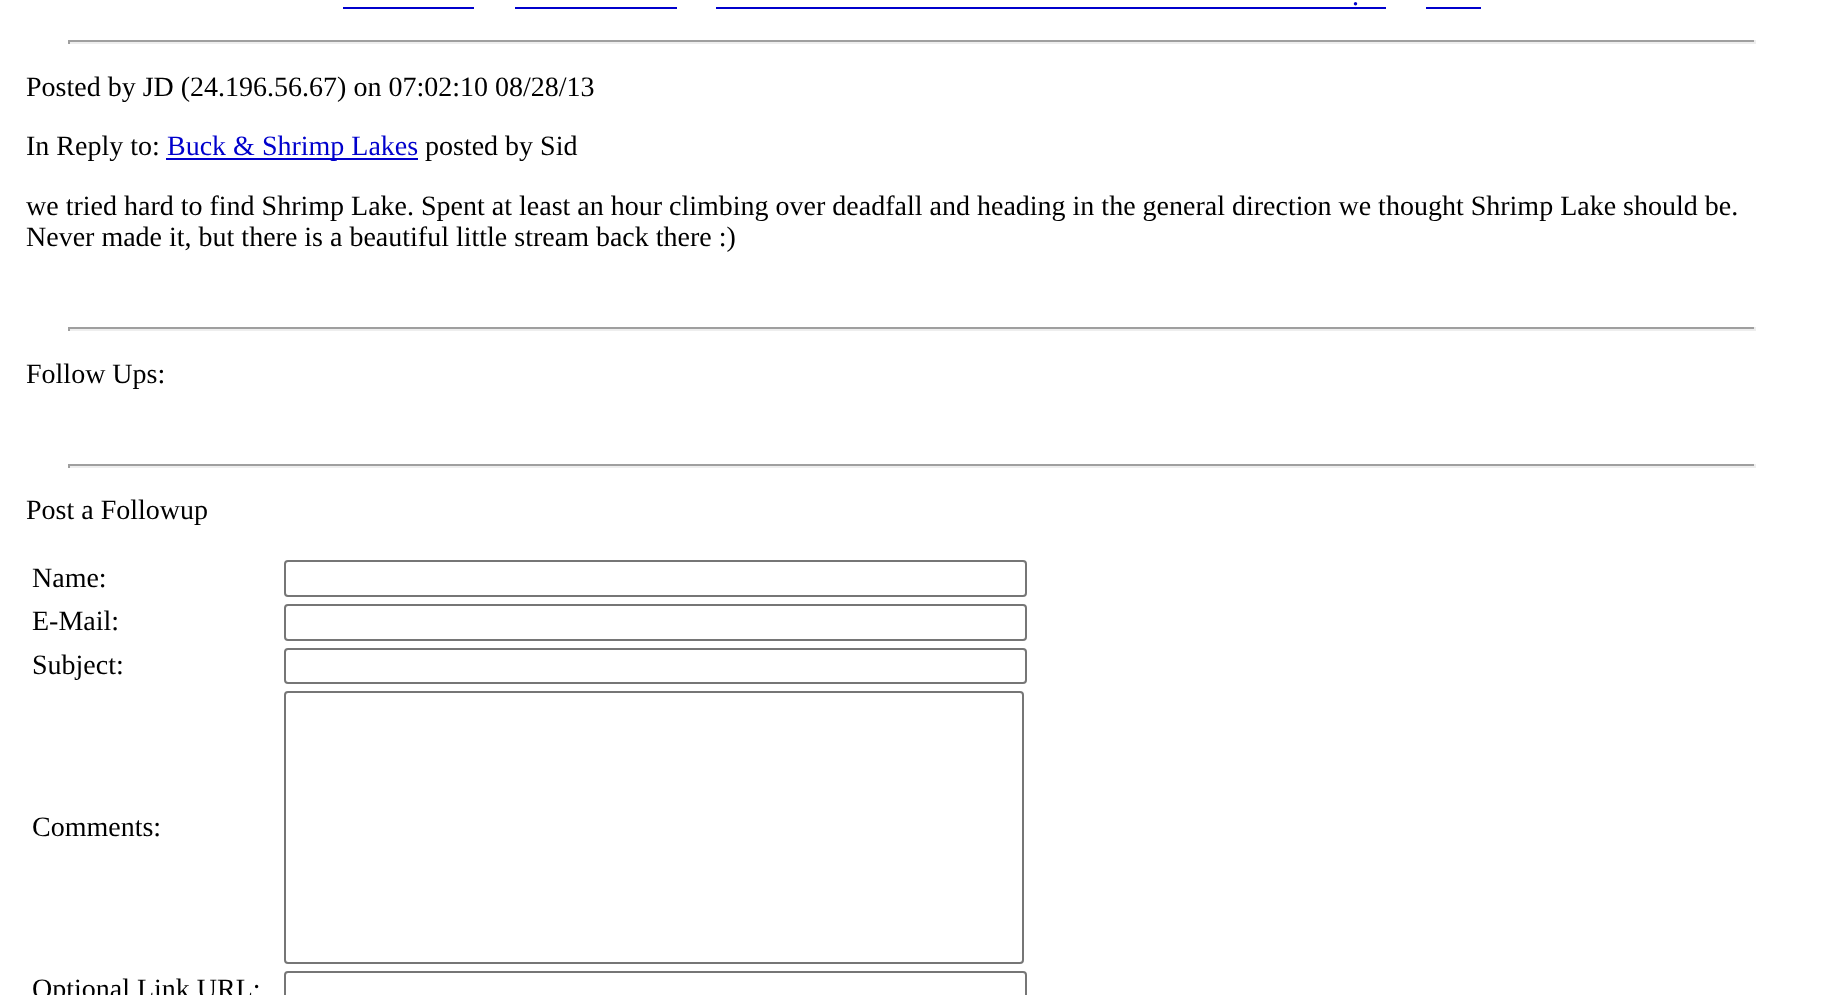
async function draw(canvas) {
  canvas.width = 1823;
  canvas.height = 995;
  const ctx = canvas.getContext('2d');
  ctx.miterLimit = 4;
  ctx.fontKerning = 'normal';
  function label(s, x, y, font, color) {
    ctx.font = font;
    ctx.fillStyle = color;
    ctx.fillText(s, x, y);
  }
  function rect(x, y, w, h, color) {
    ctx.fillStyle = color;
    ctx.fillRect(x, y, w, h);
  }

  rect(0, 0, 1823, 995, '#fff');
  label('.', 1352, 5, '28px Liberation Serif', '#00c');
  rect(716, 7, 670, 2, '#00c');
  rect(343, 7, 131, 2, '#00c');
  rect(515, 7, 162, 2, '#00c');
  rect(1426, 7, 55, 2, '#00c');
  rect(68, 40, 1687, 2, '#9f9f9f');
  rect(1754, 40, 2, 4, '#eee');
  rect(68, 42, 1687, 2, '#eee');
  rect(68, 40, 2, 4, '#9f9f9f');
  label('Posted by JD (24.196.56.67) on 07:02:10 08/28/13', 26, 96, '28px Liberation Serif', '#000');
  label('In Reply to:', 26, 155, '28px Liberation Serif', '#000');
  rect(166, 158, 252, 2, '#00c');
  label('Buck & Shrimp Lakes', 167, 155, '28px Liberation Serif', '#00c');
  label('posted by Sid', 425, 155, '28px Liberation Serif', '#000');
  label('we tried hard to find Shrimp Lake. Spent at least an hour climbing over deadfall and heading in the general direction we thought Shrimp Lake should be.', 26, 215, '28px Liberation Serif', '#000');
  label('Never made it, but there is a beautiful little stream back there :)', 26, 246, '28px Liberation Serif', '#000');
  rect(68, 327, 1687, 2, '#9f9f9f');
  rect(1754, 327, 2, 4, '#eee');
  rect(68, 329, 1687, 2, '#eee');
  rect(68, 327, 2, 4, '#9f9f9f');
  label('Follow Ups:', 26, 383, '28px Liberation Serif', '#000');
  rect(68, 464, 1687, 2, '#9f9f9f');
  rect(1754, 464, 2, 4, '#eee');
  rect(68, 466, 1687, 2, '#eee');
  rect(68, 464, 2, 4, '#9f9f9f');
  label('Post a Followup', 26, 519, '28px Liberation Serif', '#000');
  label('Name:', 32, 587, '28px Liberation Serif', '#000');
  ctx.beginPath();
  ctx.roundRect(285, 561, 741, 35, 3);
  ctx.strokeStyle = '#767676';
  ctx.lineWidth = 2;
  ctx.stroke();
  label('E-Mail:', 32, 630, '28px Liberation Serif', '#000');
  ctx.beginPath();
  ctx.roundRect(285, 605, 741, 35, 3);
  ctx.stroke();
  label('Subject:', 32, 674, '28px Liberation Serif', '#000');
  ctx.beginPath();
  ctx.roundRect(285, 649, 741, 34, 3);
  ctx.stroke();
  label('Comments:', 32, 836, '28px Liberation Serif', '#000');
  ctx.beginPath();
  ctx.roundRect(285, 692, 738, 271, 3);
  ctx.stroke();
  label('Optional Link URL:', 32, 998, '28px Liberation Serif', '#000');
  ctx.beginPath();
  ctx.roundRect(285, 972, 741, 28, 3);
  ctx.stroke();
}

draw(document.querySelector('canvas'));
